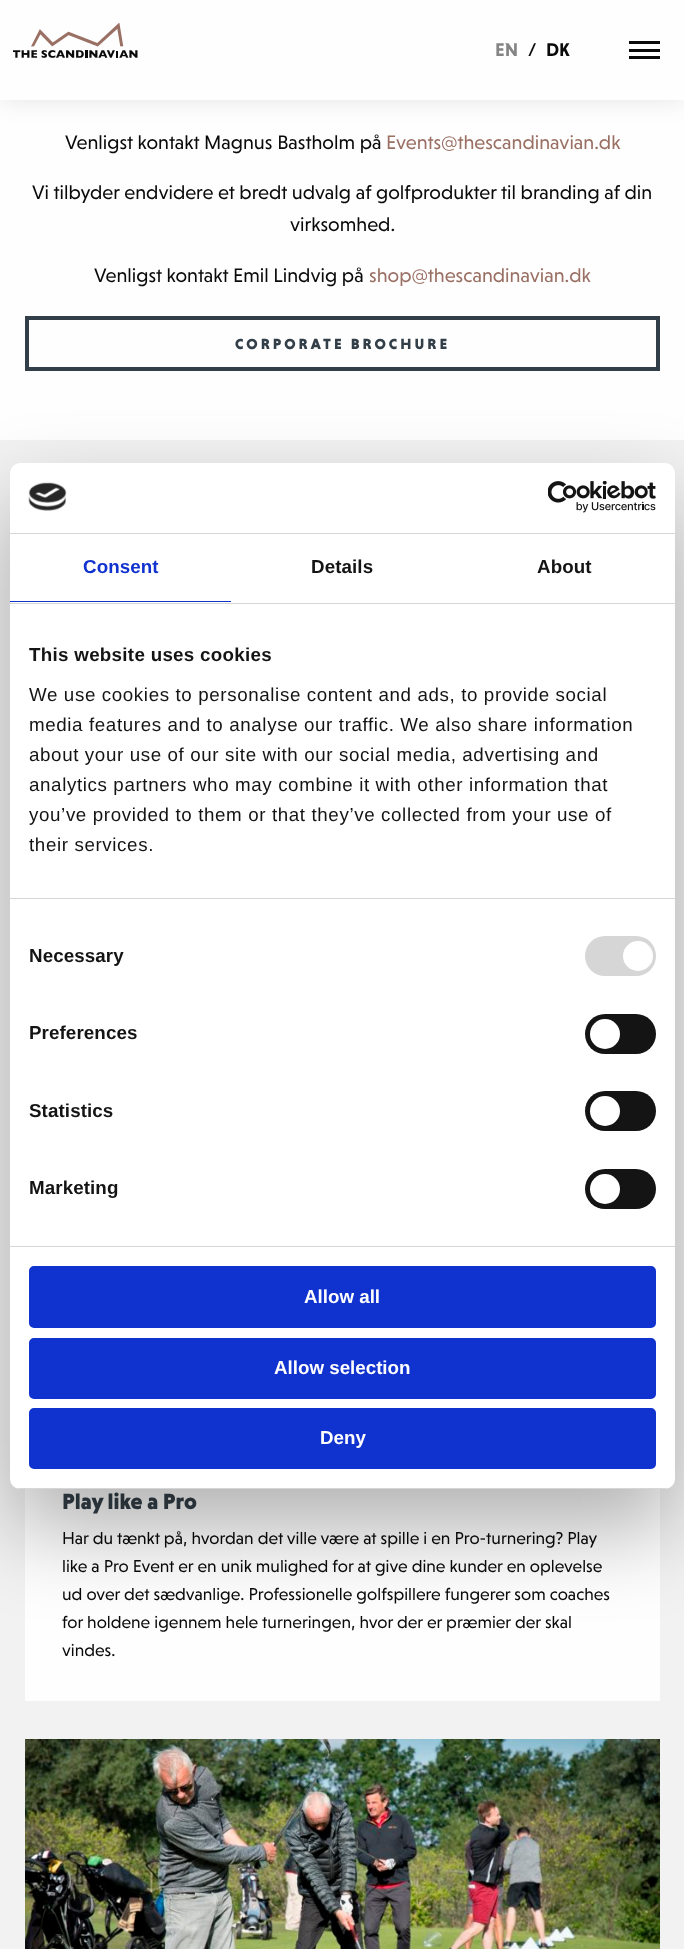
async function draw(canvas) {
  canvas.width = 684;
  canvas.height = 1949;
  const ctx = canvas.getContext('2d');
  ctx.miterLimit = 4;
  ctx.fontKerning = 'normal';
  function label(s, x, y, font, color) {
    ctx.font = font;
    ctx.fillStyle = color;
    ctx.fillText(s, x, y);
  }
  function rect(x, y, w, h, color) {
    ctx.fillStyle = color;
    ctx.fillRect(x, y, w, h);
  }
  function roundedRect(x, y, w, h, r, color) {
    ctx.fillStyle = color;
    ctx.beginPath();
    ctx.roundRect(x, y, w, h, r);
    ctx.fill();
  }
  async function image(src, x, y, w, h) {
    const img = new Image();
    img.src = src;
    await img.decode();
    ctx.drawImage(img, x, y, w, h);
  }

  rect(0, 0, 684, 1949, '#f2f2f2');
  rect(0, 100, 684, 340, '#fefefe');
  ctx.fillStyle = '#0000001a';
  ctx.filter = 'blur(12.5px)';
  ctx.beginPath();
  ctx.rect(0, 0, 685, 100);
  ctx.fill();
  ctx.filter = 'none';
  rect(0, 0, 684, 100, '#fefefe');
  await image('assets/img1.png', 13, 23, 125, 35);
  label('EN', 495, 56, 'bold 18.75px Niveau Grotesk', '#848484');
  label('/', 528, 56, 'bold 18.75px Niveau Grotesk', '#0a0a0a');
  label('DK', 546, 56, 'bold 18.75px Niveau Grotesk', '#0a0a0a');
  rect(629, 49, 31, 3, '#0a0a0a');
  rect(629, 41, 31, 3, '#0a0a0a');
  rect(629, 56, 31, 3, '#0a0a0a');
  label('Venligst kontakt Magnus Bastholm på', 65, 149, '20px Niveau Grotesk', '#0a0a0a');
  label('Events@thescandinavian.dk', 386, 149, '20px Niveau Grotesk', '#9a7064');
  label('Vi tilbyder endvidere et bredt udvalg af golfprodukter til branding af din', 32, 199, '20px Niveau Grotesk', '#0a0a0a');
  label('virksomhed.', 290, 231, '20px Niveau Grotesk', '#0a0a0a');
  label('Venligst kontakt Emil Lindvig på', 94, 282, '20px Niveau Grotesk', '#0a0a0a');
  label('shop@thescandinavian.dk', 369, 282, '20px Niveau Grotesk', '#9a7064');
  ctx.strokeStyle = '#333f48';
  ctx.lineWidth = 4;
  ctx.strokeRect(27, 318, 631, 51);
  ctx.letterSpacing = '3px';
  label('CORPORATE BROCHURE', 235, 349, '900 15px Niveau Grotesk', '#333f48');
  rect(25, 1489, 635, 212, '#fefefe');
  ctx.letterSpacing = '0px';
  label('Play like a Pro', 62, 1509, '900 22.5px Niveau Grotesk', '#333f48');
  label('Har du tænkt på, hvordan det ville være at spille i en Pro-turnering? Play', 62, 1544, '17.5px Niveau Grotesk', '#0a0a0a');
  label('like a Pro Event er en unik mulighed for at give dine kunder en oplevelse', 62, 1572, '17.5px Niveau Grotesk', '#0a0a0a');
  label('ud over det sædvanlige. Professionelle golfspillere fungerer som coaches', 62, 1600, '17.5px Niveau Grotesk', '#0a0a0a');
  label('for holdene igennem hele turneringen, hvor der er præmier der skal', 62, 1628, '17.5px Niveau Grotesk', '#0a0a0a');
  label('vindes.', 62, 1656, '17.5px Niveau Grotesk', '#0a0a0a');
  await image('assets/img2.png', 25, 1739, 635, 210);
  ctx.fillStyle = '#0000004d';
  ctx.filter = 'blur(42.5px)';
  ctx.beginPath();
  ctx.roundRect(10, 503, 665, 1026, 10);
  ctx.fill();
  ctx.filter = 'none';
  roundedRect(10, 463, 665, 1026, 10, '#fff');
  rect(10, 533, 665, 1, '#d6d6d6');
  await image('assets/img3.png', 28, 482, 39, 29);
  await image('assets/img4.png', 548, 481, 108, 32);
  rect(10, 603, 665, 1, '#d6d6d6');
  rect(10, 601, 221, 1, '#1032cf');
  ctx.letterSpacing = '0.1px';
  label('Consent', 83, 573, 'bold 18.75px Liberation Sans', '#1032cf');
  label('Details', 311, 573, 'bold 18.75px Liberation Sans', '#141414');
  label('About', 537, 573, 'bold 18.75px Liberation Sans', '#141414');
  rect(10, 898, 665, 1, '#d6d6d6');
  ctx.letterSpacing = '0.3px';
  label('This website uses cookies', 29, 661, 'bold 18.75px Liberation Sans', '#141414');
  ctx.letterSpacing = '0.62px';
  label('We use cookies to personalise content and ads, to provide social', 29, 701, '18.75px Liberation Sans', '#141414');
  label('media features and to analyse our traffic. We also share information', 29, 731, '18.75px Liberation Sans', '#141414');
  label('about your use of our site with our social media, advertising and', 29, 761, '18.75px Liberation Sans', '#141414');
  label('analytics partners who may combine it with other information that', 29, 791, '18.75px Liberation Sans', '#141414');
  label('you’ve provided to them or that they’ve collected from your use of', 29, 821, '18.75px Liberation Sans', '#141414');
  label('their services.', 29, 851, '18.75px Liberation Sans', '#141414');
  rect(10, 1246, 665, 1, '#d6d6d6');
  ctx.letterSpacing = '0.1px';
  label('Necessary', 29, 962, 'bold 18.75px Liberation Sans', '#141414');
  roundedRect(585, 936, 71, 40, 20, '#d6d6d6');
  ctx.fillStyle = '#fff';
  ctx.beginPath();
  ctx.arc(638, 956, 15, 0, 2 * Math.PI);
  ctx.fill();
  label('Preferences', 29, 1039, 'bold 18.75px Liberation Sans', '#141414');
  roundedRect(585, 1014, 71, 40, 20, '#141414');
  ctx.fillStyle = '#fff';
  ctx.beginPath();
  ctx.arc(605, 1034, 15, 0, 2 * Math.PI);
  ctx.fill();
  label('Statistics', 29, 1117, 'bold 18.75px Liberation Sans', '#141414');
  roundedRect(585, 1091, 71, 40, 20, '#141414');
  ctx.fillStyle = '#fff';
  ctx.beginPath();
  ctx.arc(605, 1111, 15, 0, 2 * Math.PI);
  ctx.fill();
  label('Marketing', 29, 1194, 'bold 18.75px Liberation Sans', '#141414');
  roundedRect(585, 1169, 71, 40, 20, '#141414');
  ctx.fillStyle = '#fff';
  ctx.beginPath();
  ctx.arc(605, 1189, 15, 0, 2 * Math.PI);
  ctx.fill();
  ctx.save();
  ctx.beginPath();
  ctx.roundRect(10, 463, 665, 1026, 10);
  ctx.clip();
  rect(10, 1488, 665, 1, '#d6d6d6');
  ctx.restore();
  ctx.fillStyle = '#1032cf';
  ctx.beginPath();
  ctx.roundRect(30.5, 1267.5, 624, 59, 3.5);
  ctx.fill();
  ctx.strokeStyle = '#1032cf';
  ctx.lineWidth = 3;
  ctx.stroke();
  ctx.letterSpacing = '0px';
  label('Allow all', 304, 1303, 'bold 18.75px Liberation Sans', '#fff');
  ctx.fillStyle = '#1032cf';
  ctx.beginPath();
  ctx.roundRect(30.5, 1339.5, 624, 58, 3.5);
  ctx.fill();
  ctx.stroke();
  label('Allow selection', 274, 1374, 'bold 18.75px Liberation Sans', '#fff');
  ctx.fillStyle = '#1032cf';
  ctx.beginPath();
  ctx.roundRect(30.5, 1409.5, 624, 58, 3.5);
  ctx.fill();
  ctx.stroke();
  label('Deny', 320, 1444, 'bold 18.75px Liberation Sans', '#fff');
}

draw(document.querySelector('canvas'));
